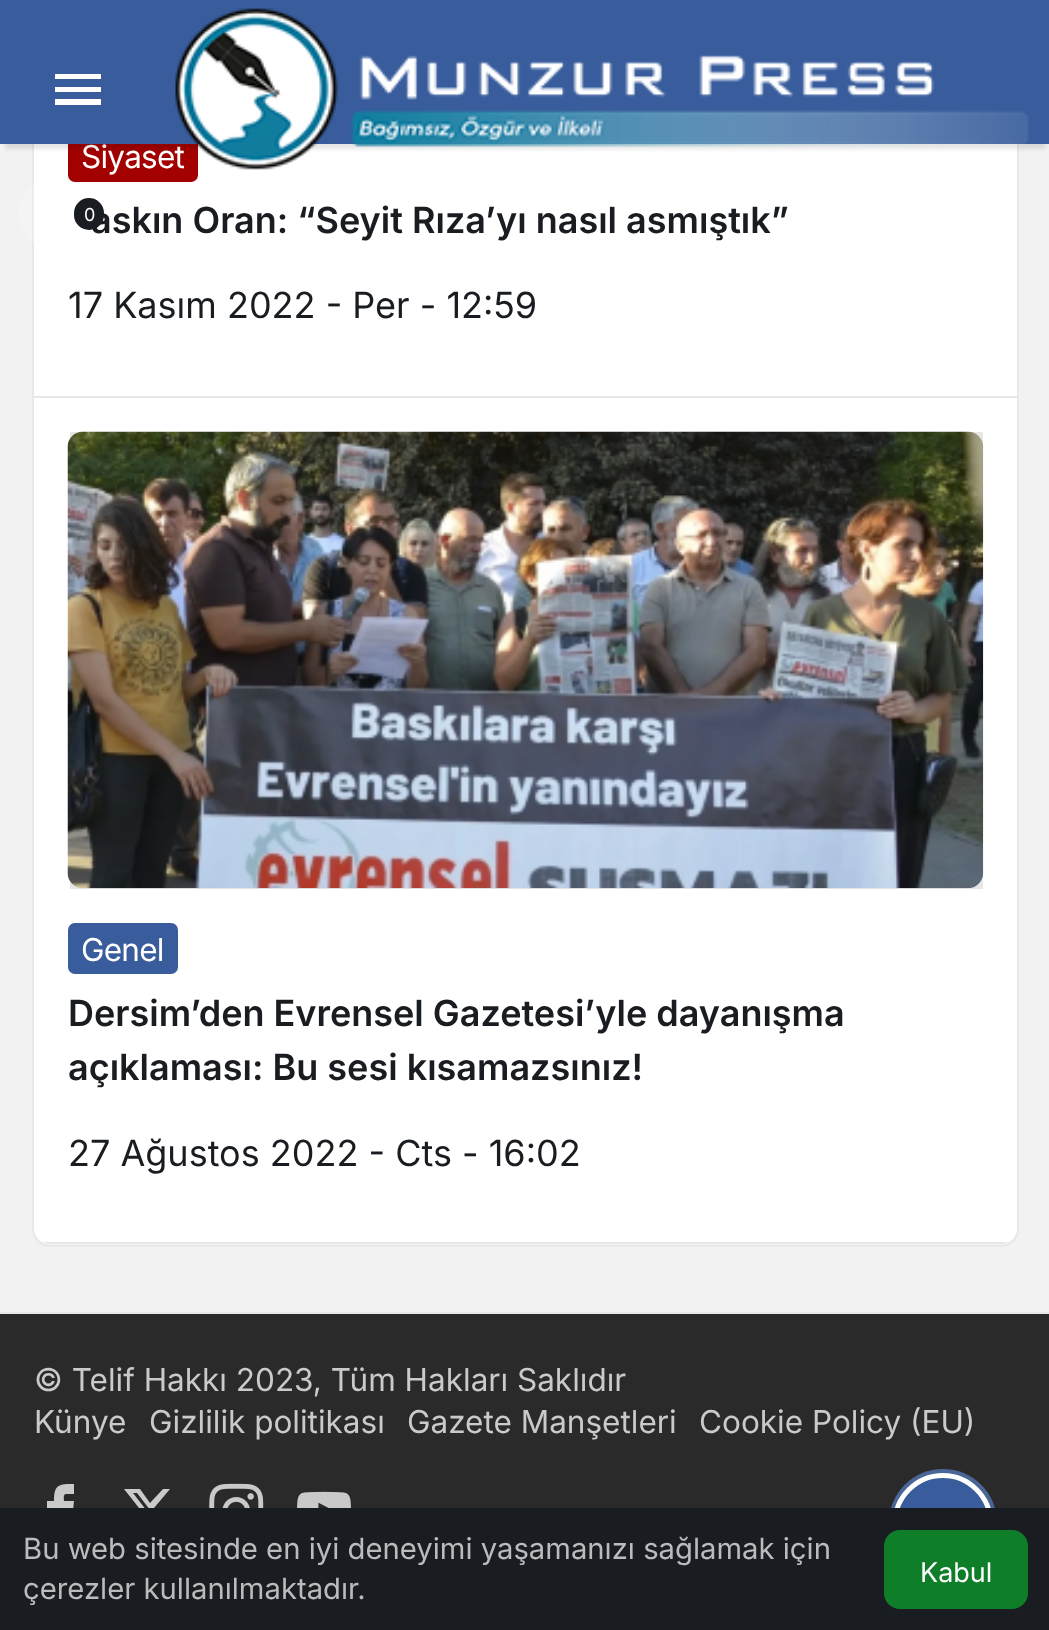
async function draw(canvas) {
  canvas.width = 1049;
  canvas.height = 1630;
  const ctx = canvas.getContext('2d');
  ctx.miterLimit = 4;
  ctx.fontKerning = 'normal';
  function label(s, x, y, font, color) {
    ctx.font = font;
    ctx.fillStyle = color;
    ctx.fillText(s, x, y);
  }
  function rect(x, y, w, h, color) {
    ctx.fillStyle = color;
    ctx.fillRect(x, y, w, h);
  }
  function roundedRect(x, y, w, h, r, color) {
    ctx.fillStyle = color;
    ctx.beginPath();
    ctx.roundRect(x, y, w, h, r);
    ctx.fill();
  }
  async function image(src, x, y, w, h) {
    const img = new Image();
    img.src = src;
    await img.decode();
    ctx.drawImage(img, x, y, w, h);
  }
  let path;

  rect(0, 0, 1049, 1630, '#f2f2f3');
  ctx.beginPath();
  ctx.roundRect(33, -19, 985, 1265, 17);
  ctx.strokeStyle = '#e8e8e8';
  ctx.lineWidth = 2;
  ctx.stroke();
  roundedRect(34, -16, 983, 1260, 16, '#fff');
  rect(34, 396, 983, 2, '#e8e8e8');
  roundedRect(68, 131, 130, 51, 7, '#a30000');
  ctx.letterSpacing = '-0.75px';
  label('Siyaset', 81, 168, '31.5px Inter', '#fff');
  ctx.letterSpacing = '0px';
  label('askın Oran: “Seyit Rıza’yı nasıl asmıştık”', 91, 233, '600 36px Inter', '#191c20');
  label('17 Kasım 2022 - Per - 12:59', 68, 318, '36px Inter', '#191c20');
  ctx.save();
  ctx.beginPath();
  ctx.roundRect(34, -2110, 983, 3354, 16);
  ctx.clip();
  rect(34, 1242, 983, 2, '#e8e8e8');
  ctx.restore();
  rect(70, 432, 913, 457, '#e6e6e6');
  await image('assets/img1.png', 67, 431, 917, 458);
  roundedRect(68, 923, 110, 51, 7, '#385c9c');
  ctx.letterSpacing = '-0.75px';
  label('Genel', 81, 961, '31.5px Inter', '#fff');
  ctx.letterSpacing = '0px';
  label('Dersim’den Evrensel Gazetesi’yle dayanışma', 68, 1026, '600 36px Inter', '#191c20');
  label('açıklaması: Bu sesi kısamazsınız!', 68, 1080, '600 36px Inter', '#191c20');
  label('27 Ağustos 2022 - Cts - 16:02', 68, 1166, '36px Inter', '#191c20');
  ctx.fillStyle = '#0000001a';
  ctx.filter = 'blur(2px)';
  ctx.beginPath();
  ctx.rect(5, 14, 1041, 135);
  ctx.fill();
  ctx.filter = 'none';
  rect(0, 0, 1049, 144, '#385c9c');
  ctx.fillStyle = '#fff';
  path = new Path2D('M55 74H101V79H55ZM55 92V87H101V92ZM55 105V99H101V105Z');
  ctx.fill(path);
  await image('assets/img2.png', 175, 8, 854, 162);
  ctx.fillStyle = '#ffffff33';
  ctx.beginPath();
  ctx.arc(54, 214, 36, 0, 2 * Math.PI);
  ctx.fill();
  roundedRect(74, 198, 30, 32, 15, '#191c20');
  label('0', 84, 221, '18px Inter', '#fff');
  ctx.strokeRect(-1, 1313, 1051, 275);
  rect(0, 1314, 1049, 194, '#2a2a2b');
  label('© Telif Hakkı 2023, Tüm Hakları Saklıdır', 34, 1391, '31.5px Inter', '#cacaca');
  label('Künye', 34, 1433, '31.5px Inter', '#cacaca');
  label('Gizlilik politikası', 149, 1433, '31.5px Inter', '#cacaca');
  label('Gazete Manşetleri', 407, 1433, '31.5px Inter', '#cacaca');
  label('Cookie Policy (EU)', 699, 1433, '31.5px Inter', '#cacaca');
  path = new Path2D('M66 1494H74V1484C59 1484 54 1484 54 1501H47V1511H54V1538H64V1511H73L74 1501H64C64 1499 63 1494 66 1494Z');
  ctx.fill(path);
  path = new Path2D('M163 1489H170L154 1508L173 1533H158L146 1517L133 1533H125L143 1513L124 1489H140L150 1503ZM160 1528H164L137 1493H133Z');
  ctx.fill(path);
  await image('assets/img3.png', 209, 1483, 55, 25);
  await image('assets/img4.png', 297, 1491, 54, 17);
  ctx.fillStyle = '#385c9c';
  ctx.beginPath();
  ctx.arc(943, 1523, 54, 0, 2 * Math.PI);
  ctx.fill();
  ctx.beginPath();
  ctx.arc(943, 1523, 52, 0, 2 * Math.PI);
  ctx.strokeStyle = '#80828640';
  ctx.lineWidth = 4;
  ctx.stroke();
  path = new Path2D('M943 1475.5C969 1475.5 990.5 1497 990.5 1523C990.5 1549.5 969 1571 943 1571C916.5 1571 895 1549.5 895 1523C895 1497 916.5 1475.5 943 1475.5');
  ctx.strokeStyle = '#fff';
  ctx.lineWidth = 4.9;
  ctx.stroke(path);
  rect(0, 1508, 1049, 122, '#191c20');
  label('Bu web sitesinde en iyi deneyimi yaşamanızı sağlamak için', 23, 1559, '29.25px Inter', '#babbbc');
  label('çerezler kullanılmaktadır.', 23, 1599, '29.25px Inter', '#babbbc');
  roundedRect(884, 1530, 144, 79, 16, '#0f7e29');
  label('Kabul', 920, 1582, '27px Inter', '#fff');
}

draw(document.querySelector('canvas'));
